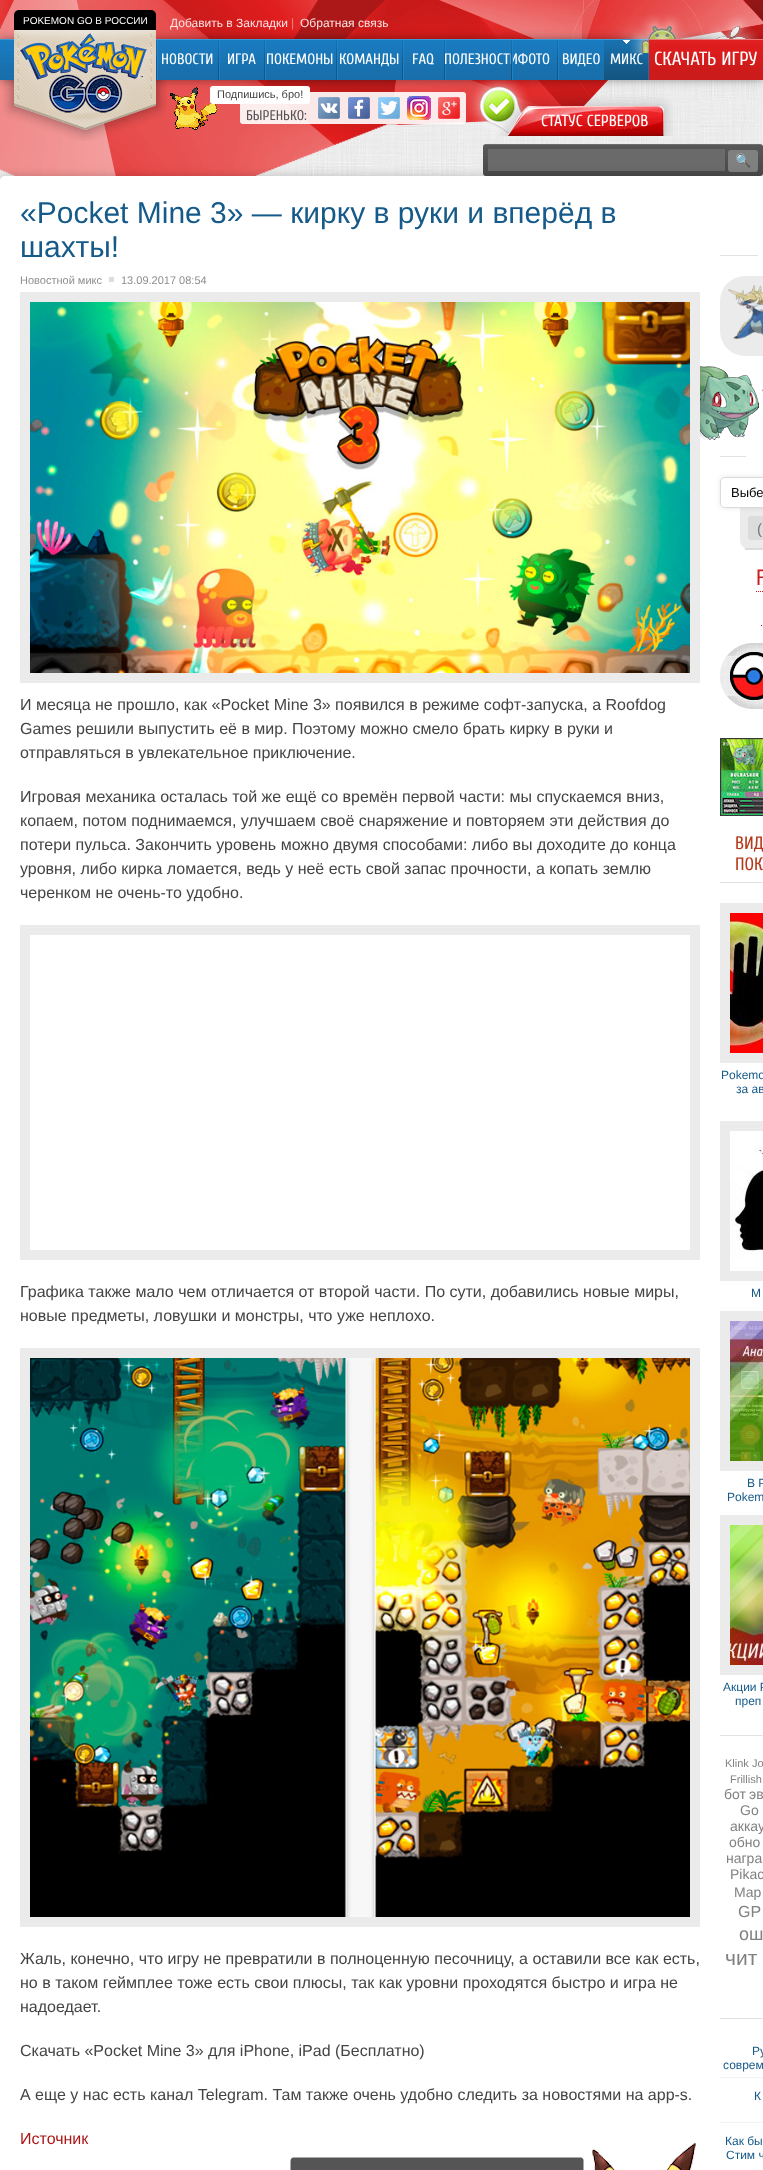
async function draw(canvas) {
  canvas.width = 763;
  canvas.height = 2170;
  const ctx = canvas.getContext('2d');
  ctx.miterLimit = 4;
  ctx.fontKerning = 'normal';
  function label(s, x, y, font, color) {
    ctx.font = font;
    ctx.fillStyle = color;
    ctx.fillText(s, x, y);
  }
  function rect(x, y, w, h, color) {
    ctx.fillStyle = color;
    ctx.fillRect(x, y, w, h);
  }
  function roundedRect(x, y, w, h, r, color) {
    ctx.fillStyle = color;
    ctx.beginPath();
    ctx.roundRect(x, y, w, h, r);
    ctx.fill();
  }
  async function image(src, x, y, w, h) {
    const img = new Image();
    img.src = src;
    await img.decode();
    ctx.drawImage(img, x, y, w, h);
  }
  let path;

  rect(0, 0, 763, 2170, '#fff');
  await image('assets/img1.png', 0, 0, 763, 181);
  await image('assets/img2.png', 0, 0, 763, 176);
  ctx.fillStyle = '#00000066';
  ctx.filter = 'blur(5px)';
  ctx.beginPath();
  ctx.rect(0, 39, 763, 41);
  ctx.fill();
  ctx.filter = 'none';
  ctx.fillStyle = '#000';
  ctx.beginPath();
  ctx.roundRect(14, 10, 142, 20, [5, 5, 0, 0]);
  ctx.fill();
  label('POKEMON GO В РОССИИ', 23, 24, '10px Liberation Sans', '#fff');
  await image('assets/img4.png', 0, 40, 649, 40);
  rect(0, 39, 649, 1, '#3c99d6');
  await image('assets/img6.png', 156, 40, 2, 40);
  label('НОВОСТИ', 161, 64, '15px Cuprum', '#fff');
  await image('assets/img3.png', 3, 30, 164, 111);
  label('Добавить в Закладки', 170, 27, '12px Liberation Sans', '#ffe3e4');
  label('|', 291, 27, '12px Liberation Sans', '#f08486');
  label('Обратная связь', 300, 27, '12px Liberation Sans', '#ffe3e4');
  await image('assets/img7.png', 604, 40, 44, 40);
  await image('assets/img5.png', 630, 14, 129, 39);
  await image('assets/img6.png', 218, 40, 2, 40);
  label('ИГРА', 227, 64, '15px Cuprum', '#fff');
  await image('assets/img6.png', 264, 40, 2, 40);
  label('ПОКЕМОНЫ', 266, 64, '15px Cuprum', '#fff');
  await image('assets/img6.png', 336, 40, 2, 40);
  label('КОМАНДЫ', 339, 64, '15px Cuprum', '#fff');
  await image('assets/img6.png', 402, 40, 2, 40);
  label('FAQ', 412, 64, '15px Cuprum', '#fff');
  await image('assets/img6.png', 444, 40, 2, 40);
  label('ПОЛЕЗНОСТИФОТО', 444, 64, '15px Cuprum', '#fff');
  await image('assets/img6.png', 511, 40, 2, 40);
  await image('assets/img6.png', 557, 40, 2, 40);
  label('ВИДЕО', 562, 64, '15px Cuprum', '#fff');
  await image('assets/img8.png', 623, 40, 7, 4);
  label('МИКС', 610, 64, '15px Cuprum', '#fff');
  await image('assets/img9.png', 649, 40, 114, 40);
  rect(649, 39, 114, 1, '#ee7477');
  label('СКАЧАТЬ ИГРУ', 654, 65, '19px Cuprum', '#fff');
  await image('assets/img10.png', 170, 87, 48, 43);
  roundedRect(240, 92, 226, 32, 3, '#ffffffe6');
  roundedRect(210, 86, 100, 18, 3, '#fff');
  label('Подпишись, бро!', 217, 98, '11px Liberation Sans', '#444');
  label('БЫРЕНЬКО:', 246, 120, '14px Cuprum', '#565555');
  await image('assets/img11.png', 318, 97, 22, 22);
  await image('assets/img12.png', 348, 97, 22, 22);
  await image('assets/img13.png', 378, 97, 22, 22);
  await image('assets/img14.png', 407, 96, 24, 24);
  await image('assets/img15.png', 438, 97, 22, 22);
  await image('assets/img16.png', 468, 80, 205, 56);
  label('СТАТУС СЕРВЕРОВ', 541, 126, '16px Cuprum', '#fff');
  await image('assets/img17.png', 483, 144, 280, 32);
  rect(488, 149, 237, 22, '#6a6a6a');
  roundedRect(728, 150, 30, 22, 3, '#808080');
  label('🔍', 735, 165, '13px Noto Color Emoji', '#bcbcbc');
  ctx.fillStyle = '#00000033';
  ctx.filter = 'blur(5px)';
  ctx.beginPath();
  ctx.roundRect(0, 176, 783, 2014, 5);
  ctx.fill();
  ctx.filter = 'none';
  roundedRect(0, 176, 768, 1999, 5, '#fff');
  label('«Pocket Mine 3» — кирку в руки и вперёд в', 20, 223, '30px Liberation Sans', '#155a89');
  label('шахты!', 20, 257, '30px Liberation Sans', '#155a89');
  label('Новостной микс', 20, 284, '11px Liberation Sans', '#8d8d8d');
  rect(109, 277, 5, 5, '#ddd');
  label('13.09.2017 08:54', 121, 284, '11px Liberation Sans', '#8d8d8d');
  ctx.beginPath();
  ctx.rect(25, 297, 670, 381);
  ctx.strokeStyle = '#ebebeb';
  ctx.lineWidth = 10;
  ctx.stroke();
  await image('assets/img18.png', 30, 302, 660, 371);
  label('И месяца не прошло, как «Pocket Mine 3» появился в режиме софт-запуска, а Roofdog', 20, 710, '16px Liberation Sans', '#444');
  label('Games решили выпустить её в мир. Поэтому можно смело брать кирку в руки и', 20, 734, '16px Liberation Sans', '#444');
  label('отправляться в увлекательное приключение.', 20, 758, '16px Liberation Sans', '#444');
  label('Игровая механика осталась той же ещё со времён первой части: мы спускаемся вниз,', 20, 802, '16px Liberation Sans', '#444');
  label('копаем, потом поднимаемся, улучшаем своё снаряжение и повторяем эти действия до', 20, 826, '16px Liberation Sans', '#444');
  label('потери пульса. Закончить уровень можно двумя способами: либо вы доходите до конца', 20, 850, '16px Liberation Sans', '#444');
  label('уровня, либо кирка ломается, ведь у неё есть свой запас прочности, а копать землю', 20, 874, '16px Liberation Sans', '#444');
  label('черенком не очень-то удобно.', 20, 898, '16px Liberation Sans', '#444');
  ctx.beginPath();
  ctx.rect(25, 930, 670, 325);
  ctx.stroke();
  label('Графика также мало чем отличается от второй части. По сути, добавились новые миры,', 20, 1297, '16px Liberation Sans', '#444');
  label('новые предметы, ловушки и монстры, что уже неплохо.', 20, 1321, '16px Liberation Sans', '#444');
  ctx.beginPath();
  ctx.rect(25, 1353, 670, 569);
  ctx.stroke();
  await image('assets/img19.png', 30, 1358, 660, 559);
  label('Жаль, конечно, что игру не превратили в полноценную песочницу, а оставили все как есть,', 20, 1964, '16px Liberation Sans', '#444');
  label('но в таком геймплее тоже есть свои плюсы, так как уровни проходятся быстро и игра не', 20, 1988, '16px Liberation Sans', '#444');
  label('надоедает.', 20, 2012, '16px Liberation Sans', '#444');
  label('Скачать «Pocket Mine 3» для iPhone, iPad (Бесплатно)', 20, 2056, '16px Liberation Sans', '#444');
  label('А еще у нас есть канал Telegram. Там также очень удобно следить за новостями на app-s.', 20, 2100, '16px Liberation Sans', '#444');
  label('Источник', 20, 2144, '16px Liberation Sans', '#ac1818');
  await image('assets/img20.png', 290, 2157, 294, 13);
  await image('assets/img21.png', 592, 2143, 104, 27);
  rect(720, 255, 43, 1, '#e1e3df');
  rect(758, 249, 5, 7, '#fff');
  roundedRect(720, 276, 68, 80, 25, '#ebebeb');
  await image('assets/img22.png', 728, 285, 35, 55);
  await image('assets/img23.png', 700, 366, 63, 74);
  rect(720, 456, 26, 1, '#e1e3df');
  ctx.fillStyle = '#ebebeb';
  path = new Path2D('M740 508H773V540C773 545.5 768.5 550 763 550H750C744.5 550 740 545.5 740 540Z');
  ctx.fill(path);
  roundedRect(748, 516, 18, 24, 3, '#dcdcdc');
  ctx.fillStyle = '#7b7b7b33';
  ctx.filter = 'blur(2.5px)';
  ctx.beginPath();
  ctx.roundRect(720, 477, 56, 31, 5);
  ctx.fill();
  ctx.filter = 'none';
  ctx.fillStyle = '#fff';
  path = new Path2D('M725 477H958C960 477 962 479 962 482V504C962 506 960 508 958 508H725C722 508 720 506 720 504V482C720 479 722 477 725 477Z');
  ctx.fill(path);
  path = new Path2D('M725 477.5H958C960 477.5 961.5 479.5 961.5 482V504C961.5 506 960 507.5 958 507.5H725C722.5 507.5 720.5 506 720.5 504V482C720.5 479.5 722.5 477.5 725 477.5Z');
  ctx.strokeStyle = '#dadada';
  ctx.lineWidth = 1;
  ctx.stroke(path);
  label('Выбе', 731, 497, '13px Liberation Sans', '#000');
  rect(745, 548, 18, 2, '#dcdcdc');
  label('(', 757, 534, '15px Liberation Sans', '#757575');
  label('F', 756, 585, '22px Cuprum', '#cc1b1b');
  path = new Path2D('M756 591.5H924');
  ctx.strokeStyle = '#cc1b1b';
  ctx.setLineDash([1, 1]);
  ctx.stroke(path);
  path = new Path2D('M761 625.5H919');
  ctx.stroke(path);
  await image('assets/img24.png', 720, 643, 43, 66);
  await image('assets/img25.png', 720, 652, 43, 48);
  await image('assets/img26.png', 720, 738, 43, 78);
  await image('assets/img27.png', 760, 765, 3, 30);
  label('ВИД', 735, 849, '18px Cuprum', '#b5391a');
  label('ПОК', 735, 870, '18px Cuprum', '#b5391a');
  rect(720, 882, 43, 1, '#e1e3df');
  path = new Path2D('M725 908H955V1058H725Z');
  ctx.strokeStyle = '#ebebeb';
  ctx.lineWidth = 10;
  ctx.setLineDash([]);
  ctx.stroke(path);
  await image('assets/img28.png', 730, 913, 33, 140);
  label('Pokеmo', 721, 1079, '12px Liberation Sans', '#155a89');
  label('за ав', 736, 1093, '12px Liberation Sans', '#155a89');
  path = new Path2D('M725 1126H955V1276H725Z');
  ctx.stroke(path);
  await image('assets/img29.png', 730, 1147, 33, 111);
  label('М', 751, 1297, '12px Liberation Sans', '#155a89');
  path = new Path2D('M725 1316H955V1466H725Z');
  ctx.stroke(path);
  await image('assets/img30.png', 730, 1321, 33, 140);
  label('В Р', 747, 1487, '12px Liberation Sans', '#155a89');
  label('Pokem', 727, 1501, '12px Liberation Sans', '#155a89');
  path = new Path2D('M725 1520H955V1670H725Z');
  ctx.stroke(path);
  await image('assets/img31.png', 730, 1525, 33, 140);
  label('Акции P', 723, 1691, '12px Liberation Sans', '#155a89');
  label('преп', 735, 1705, '12px Liberation Sans', '#155a89');
  rect(720, 1735, 43, 1, '#e1e3df');
  label('Klink', 725, 1767, '11px Liberation Sans', '#818181');
  label('Jo', 752, 1767, '11px Liberation Sans', '#818181');
  label('Frillish', 730, 1783, '11px Liberation Sans', '#818181');
  label('бот', 724, 1799, '14px Liberation Sans', '#818181');
  label('эв', 749, 1799, '14px Liberation Sans', '#818181');
  label('Go', 740, 1815, '14px Liberation Sans', '#818181');
  label('аккау', 730, 1831, '14px Liberation Sans', '#818181');
  label('обно', 729, 1847, '14px Liberation Sans', '#818181');
  label('награ', 726, 1863, '14px Liberation Sans', '#818181');
  label('Pikac', 730, 1879, '14px Liberation Sans', '#818181');
  label('Map', 734, 1897, '14px Liberation Sans', '#818181');
  label('GP', 738, 1917, '16px Liberation Sans', '#818181');
  label('ош', 739, 1940, '18px Liberation Sans', '#818181');
  label('чит', 725, 1965, '21px Liberation Sans', '#818181');
  rect(720, 2018, 43, 1, '#e1e3df');
  rect(720, 2077, 43, 1, '#f3f4f2');
  label('Ру', 752, 2055, '12px Liberation Sans', '#155a89');
  label('соврем', 723, 2069, '12px Liberation Sans', '#155a89');
  rect(720, 2122, 43, 1, '#f3f4f2');
  label('К', 754, 2100, '12px Liberation Sans', '#155a89');
  label('Как бы', 725, 2145, '12px Liberation Sans', '#155a89');
  label('Стим ч', 726, 2159, '12px Liberation Sans', '#155a89');
}

draw(document.querySelector('canvas'));
